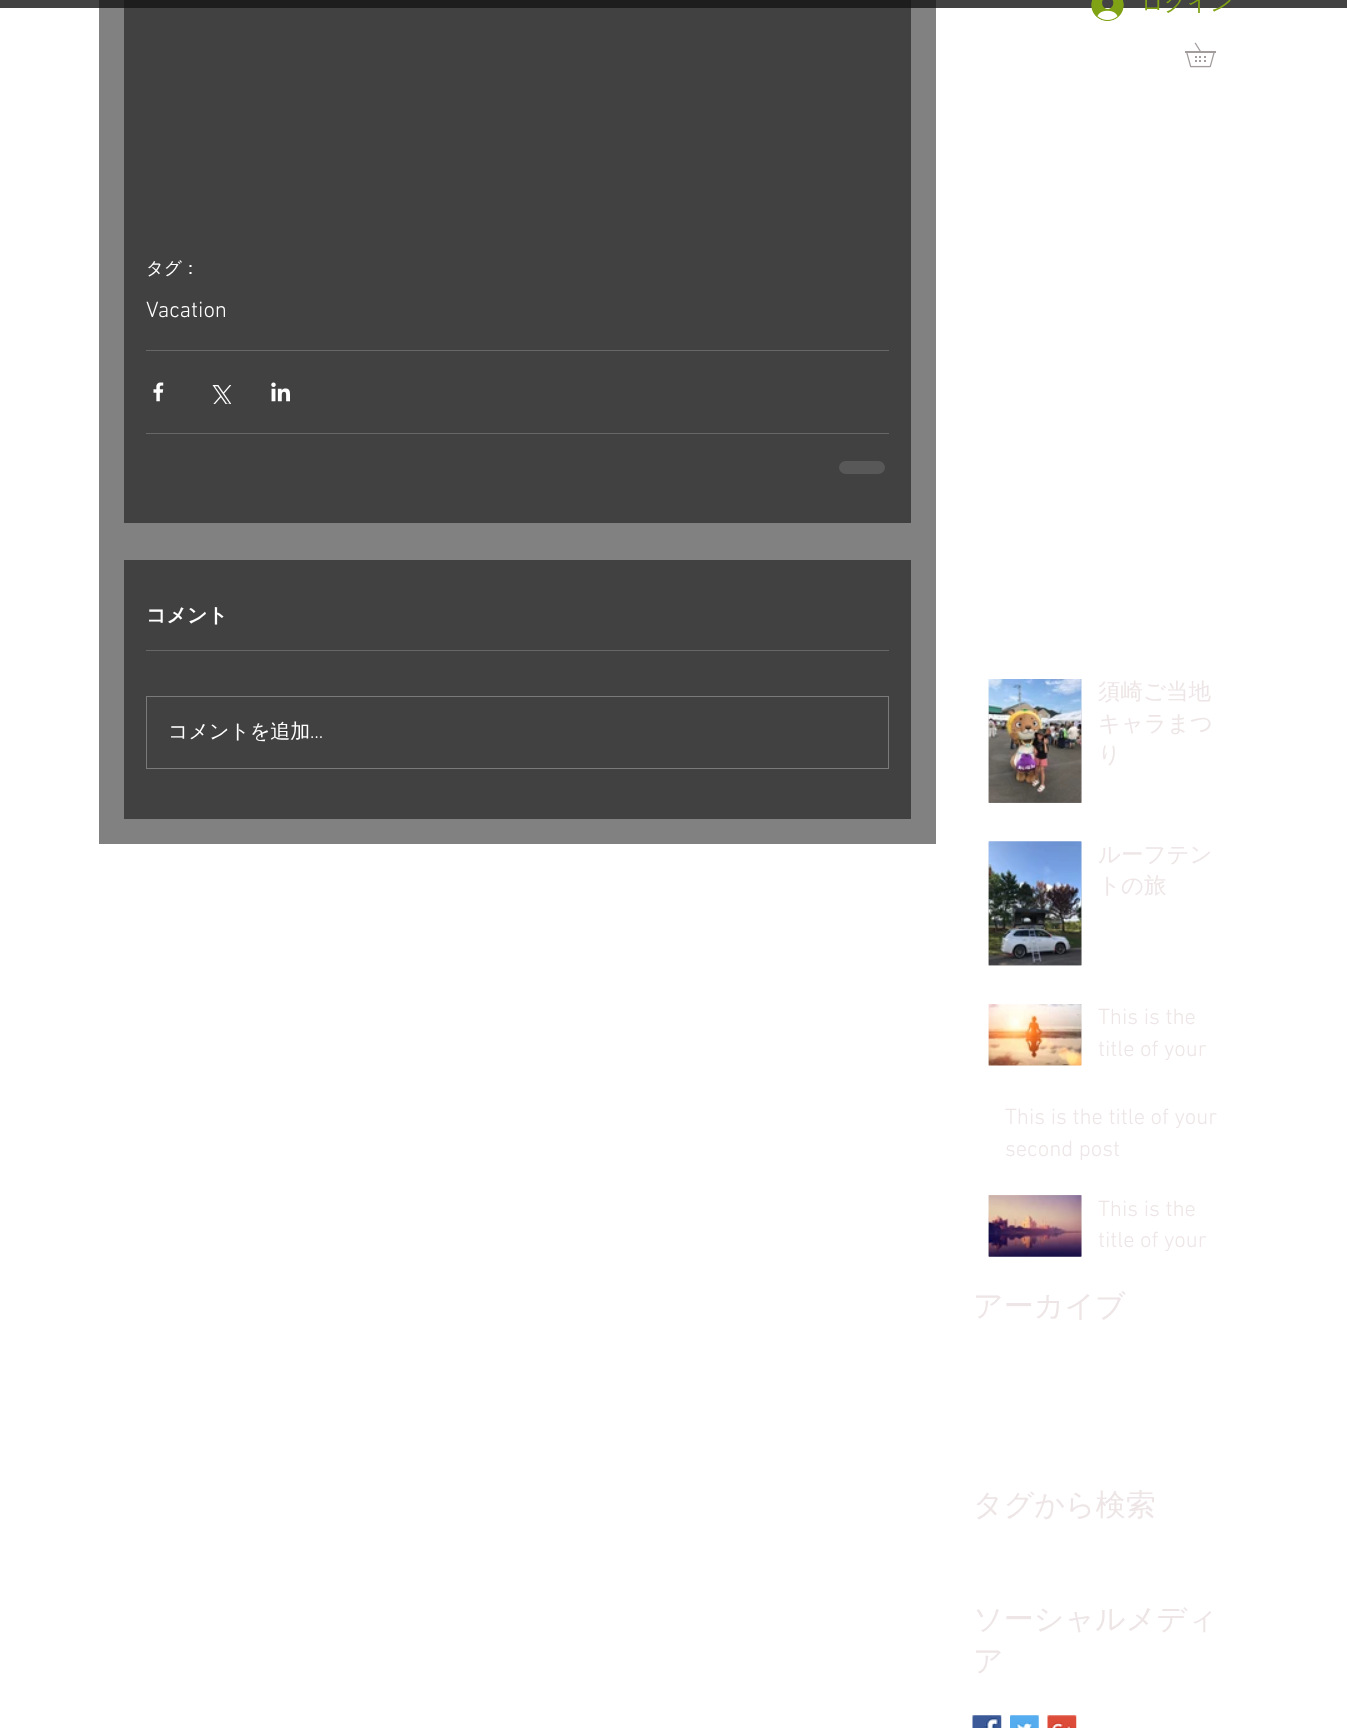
async function draw(canvas) {
  canvas.width = 1347;
  canvas.height = 1728;
  const ctx = canvas.getContext('2d');
  ctx.miterLimit = 4;
  ctx.fontKerning = 'normal';
  function label(s, x, y, font, color) {
    ctx.font = font;
    ctx.fillStyle = color;
    ctx.fillText(s, x, y);
  }
  function rect(x, y, w, h, color) {
    ctx.fillStyle = color;
    ctx.fillRect(x, y, w, h);
  }
  function roundedRect(x, y, w, h, r, color) {
    ctx.fillStyle = color;
    ctx.beginPath();
    ctx.roundRect(x, y, w, h, r);
    ctx.fill();
  }
  async function image(src, x, y, w, h) {
    const img = new Image();
    img.src = src;
    await img.decode();
    ctx.drawImage(img, x, y, w, h);
  }

  rect(0, 0, 1347, 1728, '#fff');
  rect(0, 0, 1347, 8, '#434343');
  await image('assets/img1.png', 1091, 0, 33, 21);
  label('ログイン', 1141, 10, '500 22.5px WenQuanYi Zen Hei', '#80a315');
  await image('assets/img2.png', 1185, 42, 31, 26);
  rect(99, 8, 837, 836, '#818181');
  rect(99, 0, 837, 8, '#2a2a2a');
  rect(124, 8, 787, 515, '#414141');
  rect(124, 0, 787, 8, '#1d1d1d');
  label('タグ：', 146, 274, '500 17.5px WenQuanYi Zen Hei', '#fff');
  label('Vacation', 146, 317, '300 22.5px "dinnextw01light"', '#fff');
  rect(146, 350, 743, 1, '#676767');
  await image('assets/img3.png', 153, 382, 11, 20);
  await image('assets/img4.png', 212, 385, 19, 19);
  await image('assets/img5.png', 271, 382, 19, 20);
  rect(146, 433, 743, 1, '#676767');
  roundedRect(839, 461, 46, 13, 6.5, '#585858');
  rect(124, 560, 787, 259, '#414141');
  label('コメント', 146, 622, 'bold 20px WenQuanYi Zen Hei', '#fff');
  rect(146, 650, 743, 1, '#676767');
  ctx.strokeStyle = '#7a7a7a';
  ctx.strokeRect(146.5, 696.5, 742, 72);
  label('コメントを追加', 168, 738, '500 20px WenQuanYi Zen Hei', '#fff');
  label('…', 310, 738, '300 20px "dinnextw01light"', '#fff');
  await image('assets/img6.png', 988, 679, 94, 124);
  await image('assets/img7.png', 988, 679, 94, 124);
  label('須崎ご当地', 1098, 699, '500 22.5px WenQuanYi Zen Hei', '#eee6e6');
  label('キャラまつ', 1098, 731, '500 22.5px WenQuanYi Zen Hei', '#eee6e6');
  label('り', 1098, 762, '500 22.5px WenQuanYi Zen Hei', '#eee6e6');
  await image('assets/img8.png', 988, 841, 94, 125);
  await image('assets/img9.png', 988, 841, 94, 125);
  label('ルーフテン', 1098, 862, '500 22.5px WenQuanYi Zen Hei', '#eee6e6');
  label('トの旅', 1098, 893, '500 22.5px WenQuanYi Zen Hei', '#eee6e6');
  await image('assets/img10.png', 988, 1004, 94, 62);
  await image('assets/img11.png', 988, 1004, 94, 62);
  label('This is the', 1098, 1024, '300 22.5px "dinnextw01light"', '#eee6e6');
  label('title of your', 1098, 1056, '300 22.5px "dinnextw01light"', '#eee6e6');
  label('This is the title of your', 1005, 1124, '300 22.5px "dinnextw01light"', '#eee6e6');
  label('second post', 1005, 1156, '300 22.5px "dinnextw01light"', '#eee6e6');
  await image('assets/img12.png', 988, 1195, 94, 62);
  await image('assets/img13.png', 988, 1195, 94, 62);
  label('This is the', 1098, 1216, '300 22.5px "dinnextw01light"', '#eee6e6');
  label('title of your', 1098, 1247, '300 22.5px "dinnextw01light"', '#eee6e6');
  label('アーカイブ', 973, 1316, '500 30px WenQuanYi Zen Hei', '#eee6e6');
  label('タグから検索', 973, 1515, '500 30px WenQuanYi Zen Hei', '#eee6e6');
  label('ソーシャルメディ', 973, 1629, '500 30px WenQuanYi Zen Hei', '#eee6e6');
  label('ア', 973, 1671, '500 30px WenQuanYi Zen Hei', '#eee6e6');
  await image('assets/img14.png', 972, 1715, 30, 13);
  await image('assets/img15.png', 1010, 1715, 29, 13);
  await image('assets/img16.png', 1047, 1715, 30, 13);
}

draw(document.querySelector('canvas'));
